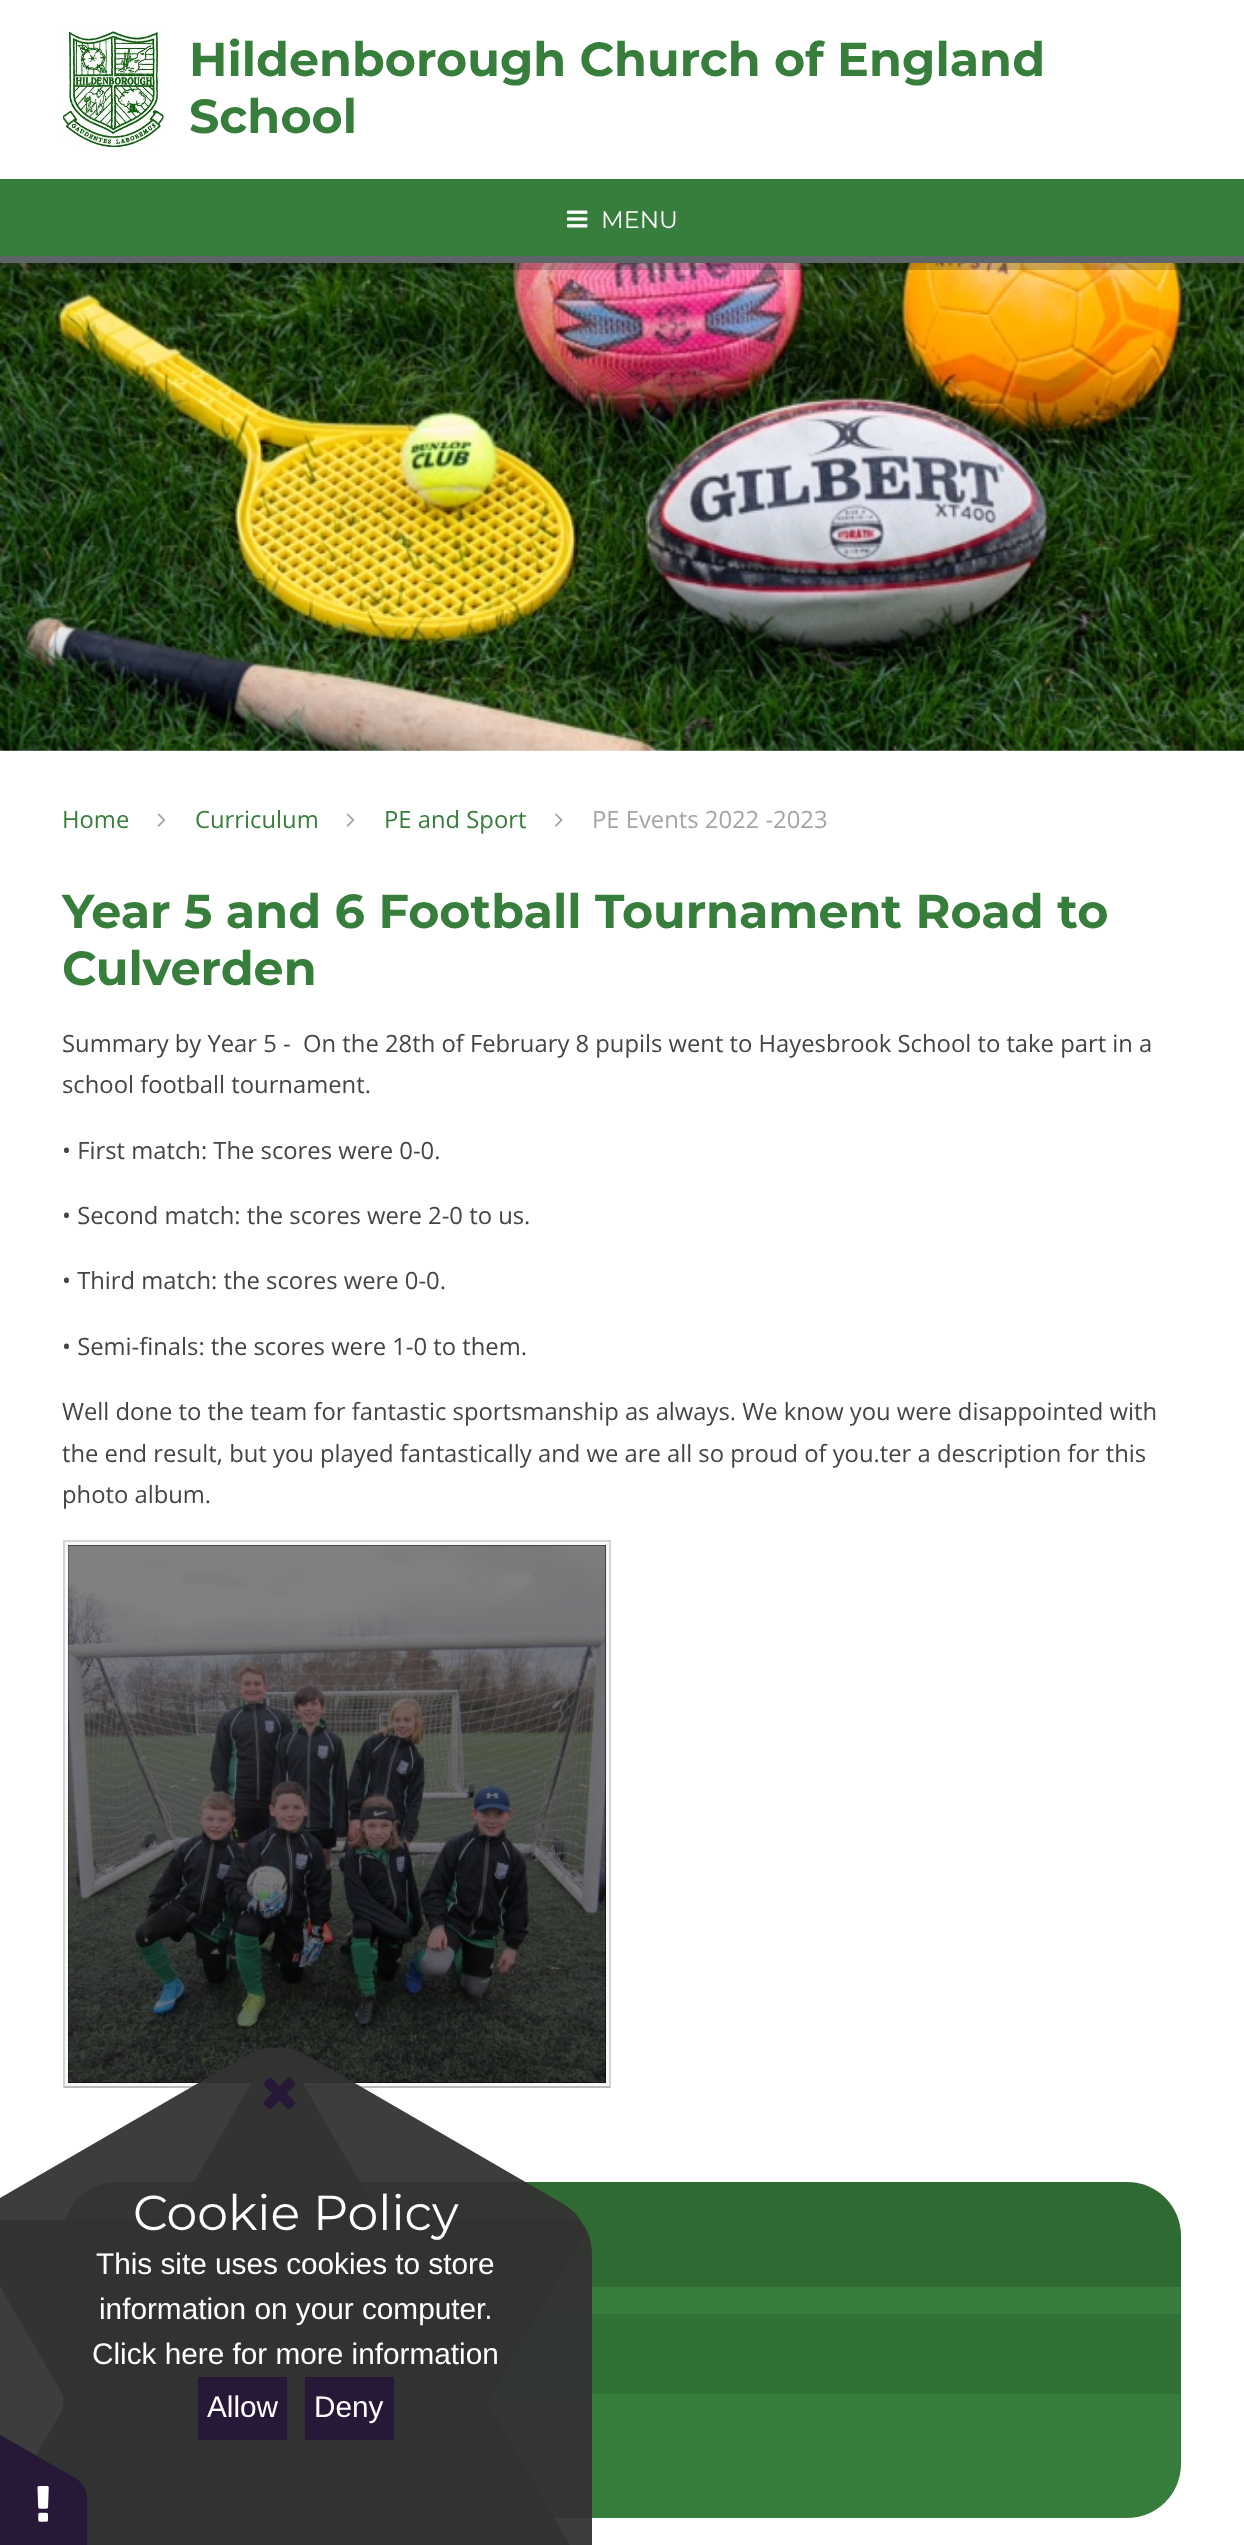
async function draw(canvas) {
  canvas.width = 1244;
  canvas.height = 2545;
  const ctx = canvas.getContext('2d');
  ctx.miterLimit = 4;
  ctx.fontKerning = 'normal';
  function label(s, x, y, font, color) {
    ctx.font = font;
    ctx.fillStyle = color;
    ctx.fillText(s, x, y);
  }
  function rect(x, y, w, h, color) {
    ctx.fillStyle = color;
    ctx.fillRect(x, y, w, h);
  }
  function roundedRect(x, y, w, h, r, color) {
    ctx.fillStyle = color;
    ctx.beginPath();
    ctx.roundRect(x, y, w, h, r);
    ctx.fill();
  }
  async function image(src, x, y, w, h) {
    const img = new Image();
    img.src = src;
    await img.decode();
    ctx.drawImage(img, x, y, w, h);
  }
  let path;

  rect(0, 0, 1244, 2545, '#fff');
  await image('assets/img1.png', 63, 30, 102, 118);
  label('Hildenborough Church of England', 189, 76, 'bold 47.6px Montserrat', '#377d3b');
  label('School', 189, 133, 'bold 47.6px Montserrat', '#377d3b');
  await image('assets/img3.png', 0, 263, 1244, 488);
  rect(0, 263, 1244, 7, '#00000033');
  rect(0, 179, 1244, 77, '#377d3b');
  rect(0, 256, 1244, 7, '#5d6568');
  await image('assets/img2.png', 567, 210, 21, 18);
  label('MENU', 601, 228, '23.8px Montserrat', '#fff');
  label('Home', 62, 828, '23.8px Open Sans', '#377d3b');
  await image('assets/img4.png', 157, 813, 9, 14);
  label('Curriculum', 195, 828, '23.8px Open Sans', '#377d3b');
  await image('assets/img4.png', 346, 813, 9, 14);
  label('PE and Sport', 384, 828, '23.8px Open Sans', '#377d3b');
  await image('assets/img5.png', 555, 813, 8, 14);
  label('PE Events 2022 -2023', 592, 828, '23.8px Open Sans', '#a4a4a4');
  label('Year 5 and 6 Football Tournament Road to', 62, 928, 'bold 47.6px Montserrat', '#377d3b');
  label('Culverden', 62, 985, 'bold 47.6px Montserrat', '#377d3b');
  label('Summary by Year 5 -  On the 28th of February 8 pupils went to Hayesbrook School to take part in a', 62, 1052, '23.8px Open Sans', '#444');
  label('school football tournament.', 62, 1093, '23.8px Open Sans', '#444');
  label('• First match: The scores were 0-0.', 62, 1159, '23.8px Open Sans', '#444');
  label('• Second match: the scores were 2-0 to us.', 62, 1224, '23.8px Open Sans', '#444');
  label('• Third match: the scores were 0-0.', 62, 1289, '23.8px Open Sans', '#444');
  label('• Semi-finals: the scores were 1-0 to them.', 62, 1355, '23.8px Open Sans', '#444');
  label('Well done to the team for fantastic sportsmanship as always. We know you were disappointed with', 62, 1420, '23.8px Open Sans', '#444');
  label('the end result, but you played fantastically and we are all so proud of you.ter a description for this', 62, 1462, '23.8px Open Sans', '#444');
  label('photo album.', 62, 1503, '23.8px Open Sans', '#444');
  rect(63, 1540, 548, 548, '#f8f8f8');
  ctx.fillStyle = '#d3d3d3';
  path = new Path2D('M63 1540H611L609 1542H65Z');
  ctx.fill(path);
  ctx.fillStyle = '#00000026';
  path = new Path2D('M611 1540V2088L609 2086V1542Z');
  ctx.fill(path);
  ctx.fillStyle = '#00000040';
  path = new Path2D('M611 2088H63L65 2086H609Z');
  ctx.fill(path);
  ctx.fillStyle = '#00000026';
  path = new Path2D('M63 2088V1540L65 1542V2086Z');
  ctx.fill(path);
  rect(68, 1545, 538, 538, '#000');
  await image('assets/img6.png', 68, 1545, 538, 538);
  roundedRect(63, 2182, 1118, 336, 54, '#377d3b');
  ctx.fillStyle = '#00000026';
  ctx.beginPath();
  ctx.roundRect(63, 2182, 1118, 105, [54, 54, 0, 0]);
  ctx.fill();
  rect(63, 2314, 1118, 80, '#327135');
  await image('assets/img7.png', 145, 2343, 12, 20);
  ctx.fillStyle = '#333333f2';
  path = new Path2D('M592 2256V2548C592 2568 584 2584 574 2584H-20C-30 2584-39 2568-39 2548V2256C-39 2236-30 2220-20 2220H574C584 2220 592 2236 592 2256Z');
  ctx.fill(path);
  path = new Path2D('M560 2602L308 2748C291 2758 273 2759 268 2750L-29 2236C-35 2227-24 2212-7 2202L245 2056C263 2046 281 2045 286 2054L583 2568C588 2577 578 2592 560 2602Z');
  ctx.fill(path);
  path = new Path2D('M308 2056L560 2202C578 2212 588 2227 583 2236L286 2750C281 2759 263 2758 245 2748L-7 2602C-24 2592-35 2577-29 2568L268 2054C273 2045 291 2046 308 2056Z');
  ctx.fill(path);
  await image('assets/img8.png', 263, 2077, 33, 33);
  label('Cookie Policy', 133, 2230, '49px Montserrat', '#fff');
  label('This site uses cookies to store', 96, 2274, '29.75px Liberation Sans', '#fff');
  label('information on your computer.', 99, 2319, '29.75px Liberation Sans', '#fff');
  label('Click here for more information', 92, 2364, '29.75px Liberation Sans', '#fff');
  rect(198, 2377, 89, 63, '#281838');
  label('Allow', 207, 2417, '29.75px Liberation Sans', '#fff');
  rect(305, 2377, 89, 63, '#281838');
  label('Deny', 314, 2417, '29.75px Liberation Sans', '#fff');
  ctx.fillStyle = '#281838';
  path = new Path2D('M87 2499V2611C87 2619 84 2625 80 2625H-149C-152 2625-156 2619-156 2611V2499C-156 2491-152 2485-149 2485H80C84 2485 87 2491 87 2499Z');
  ctx.fill(path);
  path = new Path2D('M-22 2422L75 2478C82 2482 85 2488 83 2491L-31 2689C-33 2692-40 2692-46 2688L-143 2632C-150 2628-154 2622-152 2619L-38 2421C-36 2418-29 2418-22 2422Z');
  ctx.fill(path);
  await image('assets/img9.png', 37, 2486, 12, 36);
}

draw(document.querySelector('canvas'));
